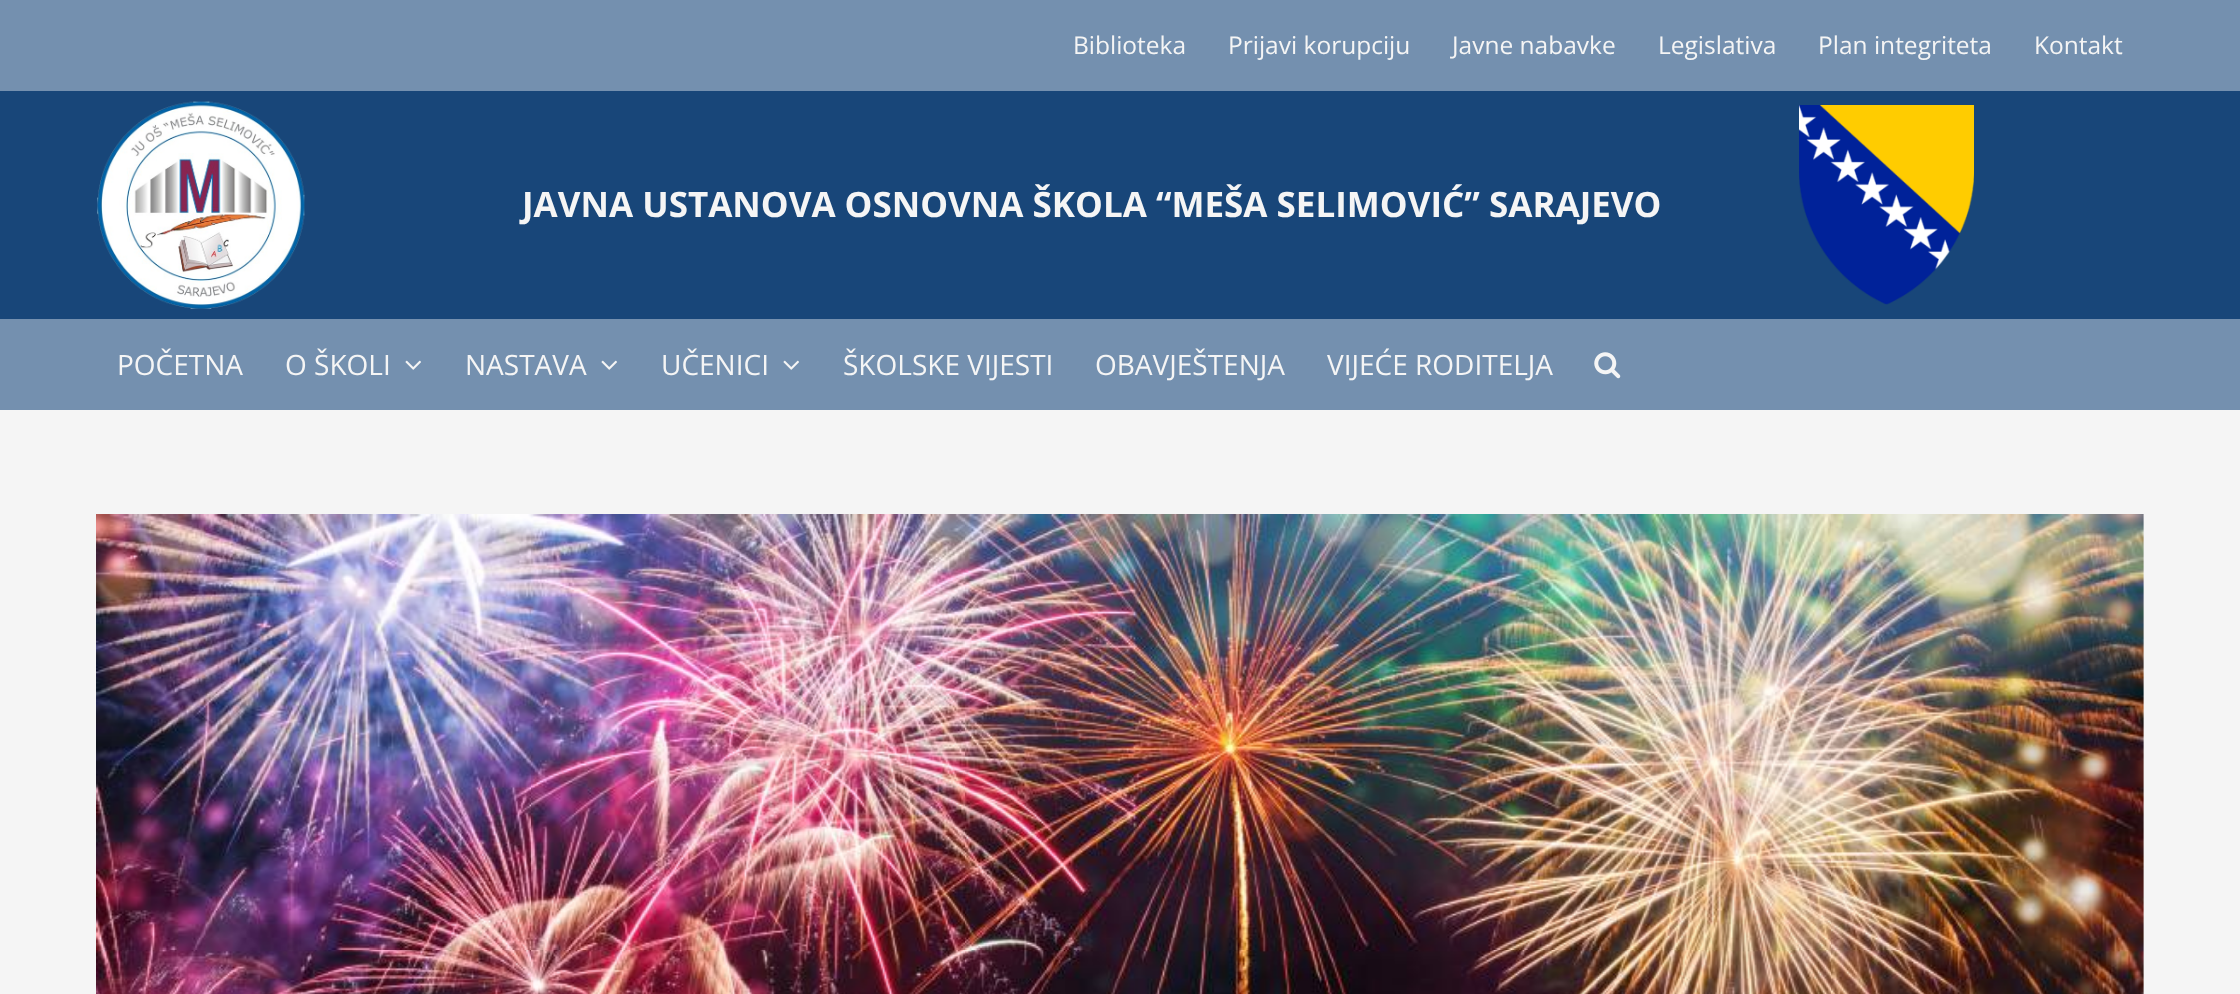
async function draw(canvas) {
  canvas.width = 2240;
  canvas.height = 994;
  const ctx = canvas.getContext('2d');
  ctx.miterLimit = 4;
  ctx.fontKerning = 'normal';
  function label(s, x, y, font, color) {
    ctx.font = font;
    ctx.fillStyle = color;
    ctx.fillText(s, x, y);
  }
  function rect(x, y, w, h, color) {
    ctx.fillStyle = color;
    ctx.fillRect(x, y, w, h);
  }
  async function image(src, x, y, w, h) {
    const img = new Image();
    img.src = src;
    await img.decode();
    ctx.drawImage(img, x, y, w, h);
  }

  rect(0, 0, 2240, 994, '#f5f5f5');
  rect(0, 0, 2240, 91, '#7490af');
  label('Biblioteka', 1073, 54, '24.5px Open Sans', '#f5f5f5');
  label('Prijavi korupciju', 1228, 54, '24.5px Open Sans', '#f5f5f5');
  label('Javne nabavke', 1452, 54, '24.5px Open Sans', '#f5f5f5');
  label('Legislativa', 1658, 54, '24.5px Open Sans', '#f5f5f5');
  label('Plan integriteta', 1818, 54, '24.5px Open Sans', '#f5f5f5');
  label('Kontakt', 2034, 54, '24.5px Open Sans', '#f5f5f5');
  rect(0, 91, 2240, 228, '#184679');
  await image('assets/img1.png', 97, 101, 208, 208);
  label('JAVNA USTANOVA OSNOVNA ŠKOLA “MEŠA SELIMOVIĆ” SARAJEVO', 522, 217, 'bold 35px Open Sans', '#f5f5f5');
  await image('assets/img2.png', 1799, 105, 175, 200);
  rect(0, 319, 2240, 91, '#7490af');
  label('POČETNA', 117, 375, '28px Open Sans', '#f5f5f5');
  label('O ŠKOLI', 285, 375, '28px Open Sans', '#f5f5f5');
  await image('assets/img3.png', 405, 360, 16, 10);
  label('NASTAVA', 465, 375, '28px Open Sans', '#f5f5f5');
  await image('assets/img3.png', 601, 360, 16, 10);
  label('UČENICI', 661, 375, '28px Open Sans', '#f5f5f5');
  await image('assets/img3.png', 783, 360, 16, 10);
  label('ŠKOLSKE VIJESTI', 843, 375, '28px Open Sans', '#f5f5f5');
  label('OBAVJEŠTENJA', 1095, 375, '28px Open Sans', '#f5f5f5');
  label('VIJEĆE RODITELJA', 1327, 375, '28px Open Sans', '#f5f5f5');
  await image('assets/img4.png', 1594, 352, 27, 27);
  await image('assets/img5.png', 96, 514, 2048, 480);
}

draw(document.querySelector('canvas'));
